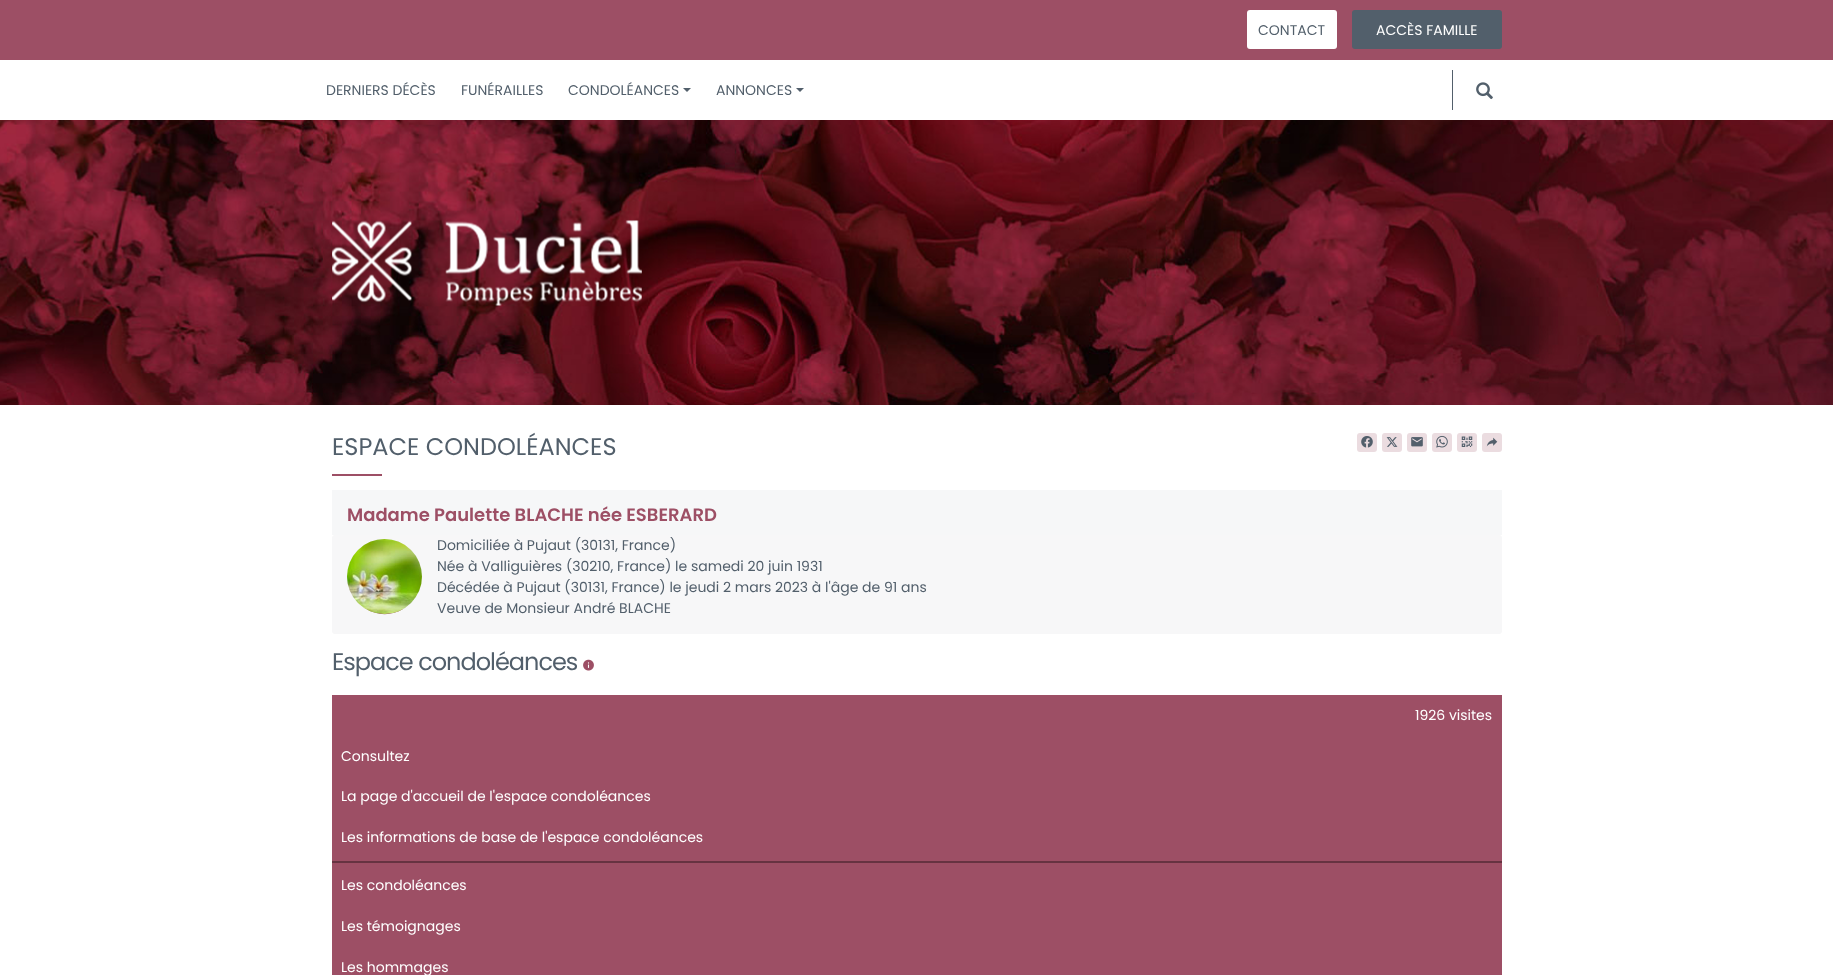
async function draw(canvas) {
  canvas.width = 1833;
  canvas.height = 975;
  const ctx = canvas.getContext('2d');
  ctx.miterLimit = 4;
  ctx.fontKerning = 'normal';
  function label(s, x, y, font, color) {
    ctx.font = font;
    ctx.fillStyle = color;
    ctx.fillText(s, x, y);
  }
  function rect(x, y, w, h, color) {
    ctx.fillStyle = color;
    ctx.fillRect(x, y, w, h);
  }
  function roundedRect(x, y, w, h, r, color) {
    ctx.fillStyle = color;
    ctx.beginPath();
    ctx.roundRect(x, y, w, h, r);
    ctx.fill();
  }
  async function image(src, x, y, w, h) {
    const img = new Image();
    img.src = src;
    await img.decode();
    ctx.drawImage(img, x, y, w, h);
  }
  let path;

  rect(0, 0, 1833, 975, '#fff');
  await image('assets/img1.png', 0, 120, 1833, 285);
  rect(0, 0, 1833, 60, '#9d4f65');
  roundedRect(1247, 10, 90, 39, 3, '#fff');
  label('CONTACT', 1258, 35, '14px Poppins', '#525f6b');
  roundedRect(1352, 10, 150, 39, 3, '#525f6b');
  label('ACCÈS FAMILLE', 1376, 35, '14px Poppins', '#fff');
  label('DERNIERS DÉCÈS', 326, 95, '14px Poppins', '#525f6b');
  label('FUNÉRAILLES', 461, 95, '14px Poppins', '#525f6b');
  label('CONDOLÉANCES', 568, 95, '14px Poppins', '#525f6b');
  path = new Path2D('M683 88H691L687 92Z');
  ctx.fill(path);
  label('ANNONCES', 716, 95, '14px Poppins', '#525f6b');
  path = new Path2D('M796 88H804L800 92Z');
  ctx.fill(path);
  rect(1452, 70, 1, 40, '#525f6b');
  await image('assets/img2.png', 1476, 82, 17, 18);
  await image('assets/img3.png', 332, 220, 310, 86);
  label('ESPACE CONDOLÉANCES', 332, 455, '24px Poppins', '#525f6b');
  rect(332, 474, 50, 2, '#9d4f65');
  roundedRect(1357, 433, 20, 19, 3, '#ebdce0');
  await image('assets/img4.png', 1361, 436, 12, 12);
  roundedRect(1382, 433, 20, 19, 3, '#ebdce0');
  await image('assets/img5.png', 1386, 437, 12, 10);
  roundedRect(1407, 433, 20, 19, 3, '#ebdce0');
  await image('assets/img6.png', 1411, 437, 12, 10);
  roundedRect(1432, 433, 20, 19, 3, '#ebdce0');
  await image('assets/img7.png', 1436, 435, 12, 13);
  roundedRect(1457, 433, 20, 19, 3, '#ebdce0');
  await image('assets/img8.png', 1461, 436, 12, 11);
  roundedRect(1482, 433, 20, 19, 3, '#ebdce0');
  await image('assets/img9.png', 1486, 437, 12, 10);
  rect(332, 490, 1170, 45, '#f6f7f8');
  label('Madame Paulette BLACHE née ESBERARD', 347, 521, '600 18px Poppins', '#9d4f65');
  roundedRect(332, 535, 1170, 99, 3, '#f7f7f8');
  ctx.fillStyle = '#e6e8ea';
  ctx.beginPath();
  ctx.arc(384.5, 576.5, 37.5, 0, 2 * Math.PI);
  ctx.fill();
  ctx.fillStyle = '#9d4f65';
  path = new Path2D('M384 594C393 594 401 600 403 609C392 616 376 616 365 608C367 600 375 594 384 594ZM395 577C395 563 373 563 373 577C373 592 395 592 395 577Z');
  ctx.fill(path, 'evenodd');
  await image('assets/img10.png', 347, 539, 75, 75);
  label('Domiciliée à Pujaut (30131, France)', 437, 550, '14px Poppins', '#525f6b');
  label('Née à Valliguières (30210, France) le samedi 20 juin 1931', 437, 571, '14px Poppins', '#525f6b');
  label('Décédée à Pujaut (30131, France) le jeudi 2 mars 2023 à l\'âge de 91 ans', 437, 592, '14px Poppins', '#525f6b');
  label('Veuve de Monsieur André BLACHE', 437, 613, '14px Poppins', '#525f6b');
  ctx.letterSpacing = '-1px';
  label('Espace condoléances', 332, 670, '24px Poppins', '#525f6b');
  await image('assets/img11.png', 583, 659, 11, 12);
  rect(332, 695, 1170, 280, '#9d4f65');
  ctx.letterSpacing = '0px';
  label('1926 visites', 1415, 720, '14px Poppins', '#fff');
  label('Consultez', 341, 761, '14px Poppins', '#fff');
  label('La page d\'accueil de l\'espace condoléances', 341, 801, '14px Poppins', '#fff');
  label('Les informations de base de l\'espace condoléances', 341, 842, '14px Poppins', '#fff');
  rect(332, 861, 1170, 2, '#663341');
  label('Les condoléances', 341, 890, '14px Poppins', '#fff');
  label('Les témoignages', 341, 931, '14px Poppins', '#fff');
  label('Les hommages', 341, 972, '14px Poppins', '#fff');
}

draw(document.querySelector('canvas'));
